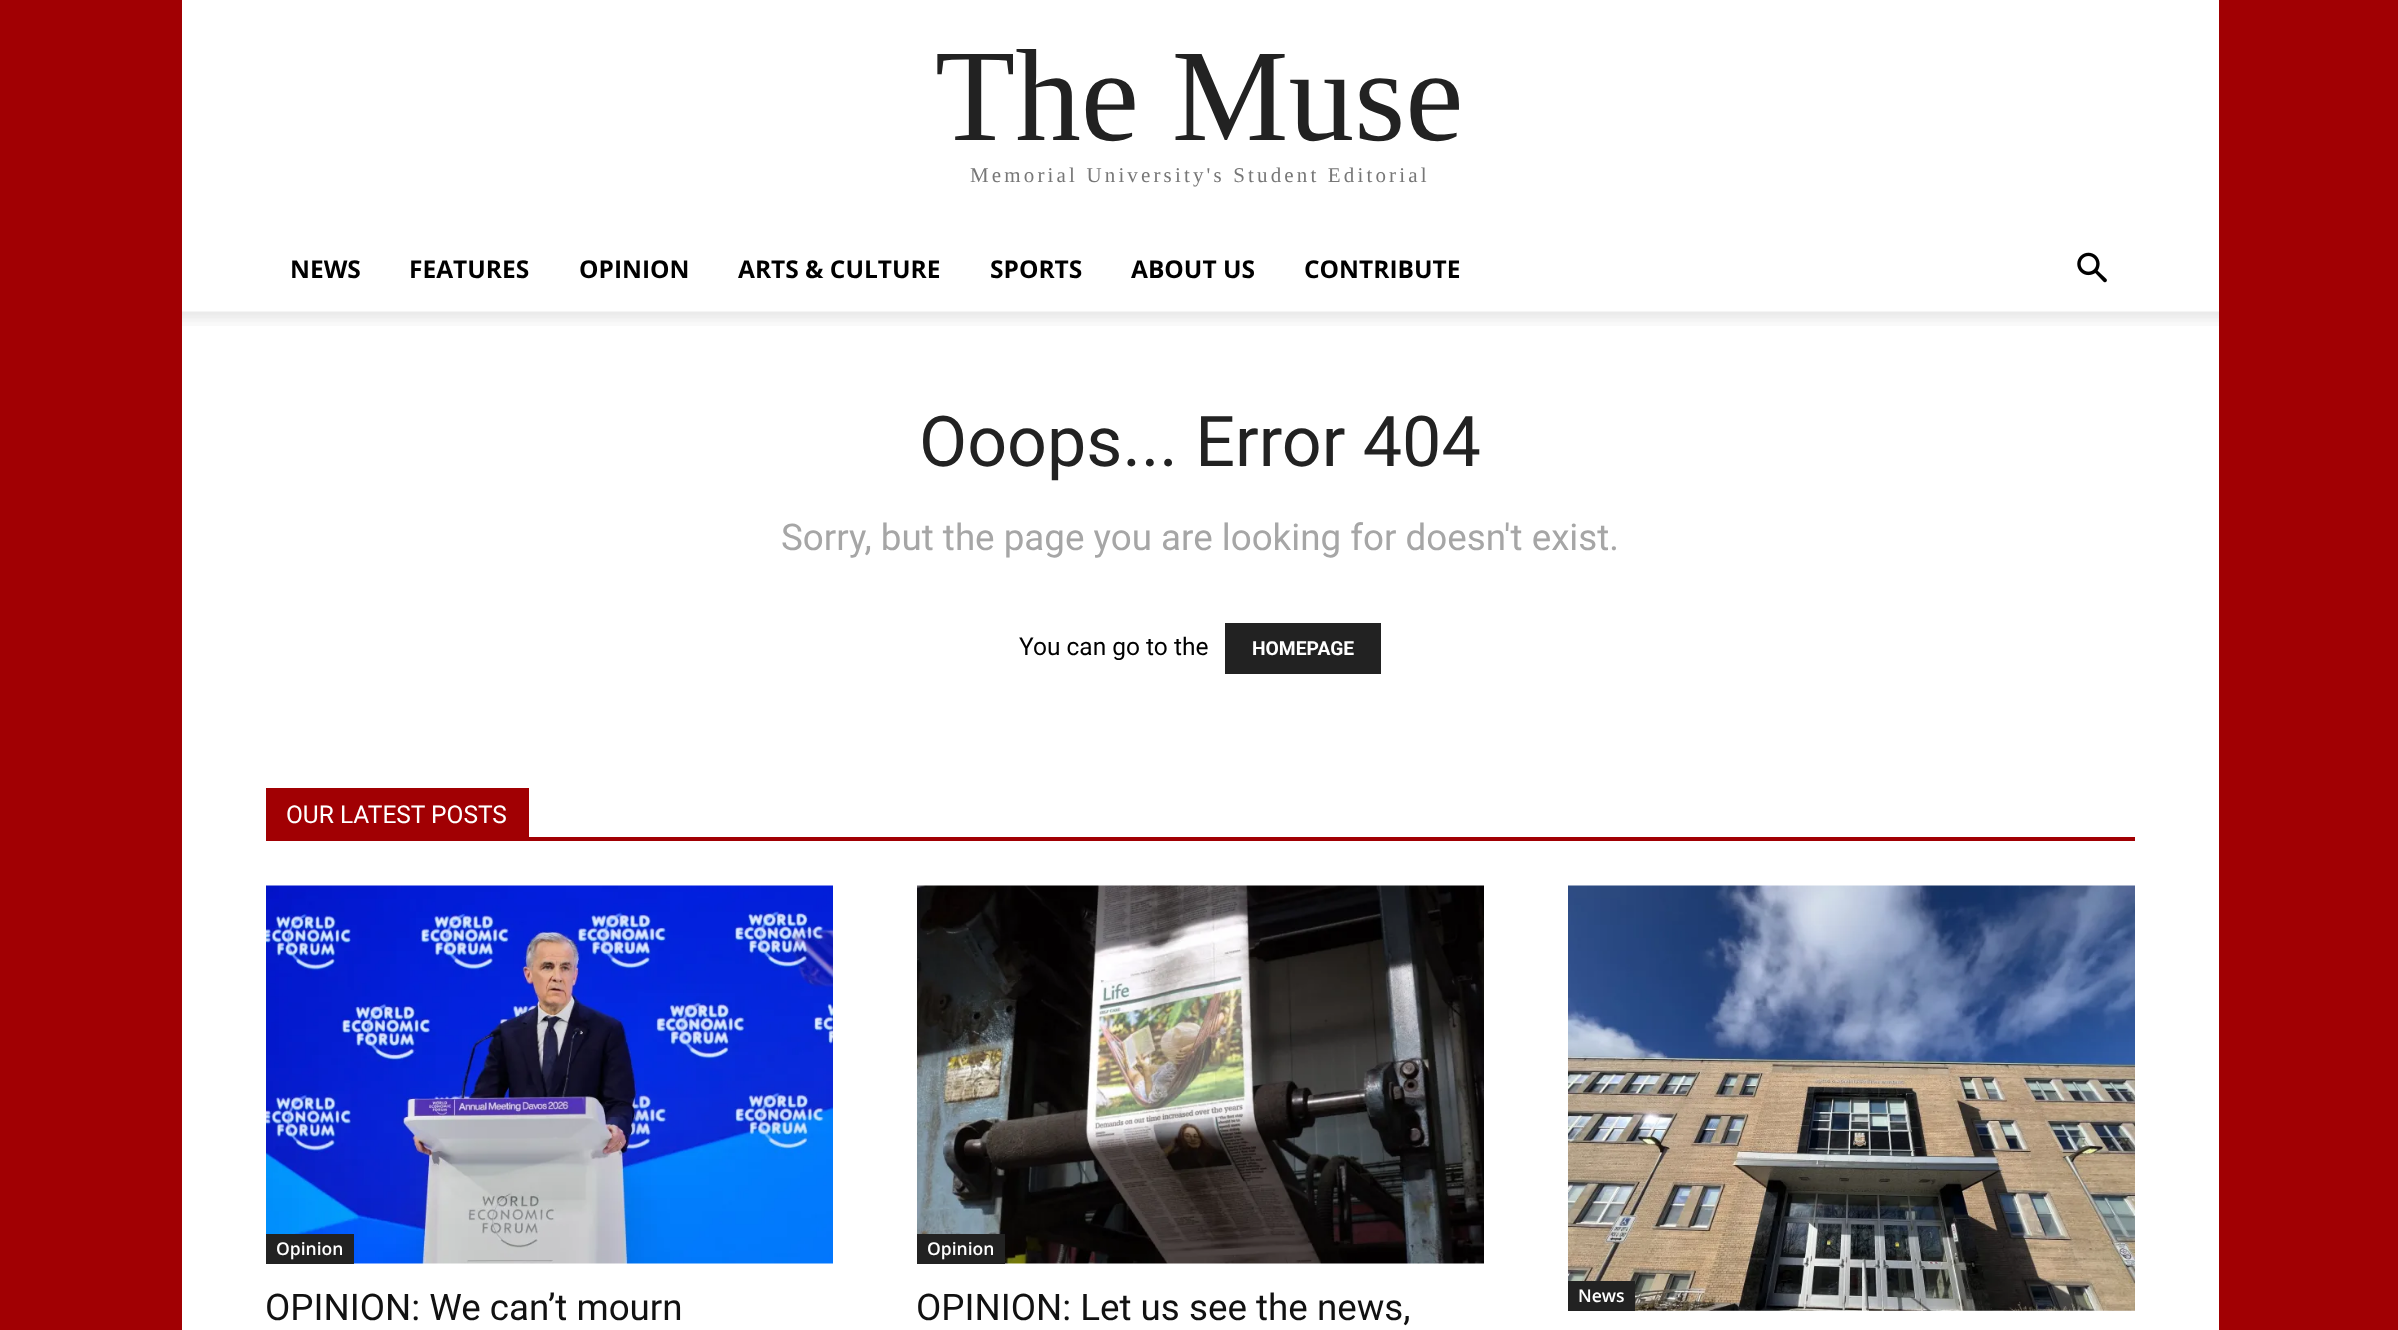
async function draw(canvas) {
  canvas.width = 2398;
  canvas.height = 1330;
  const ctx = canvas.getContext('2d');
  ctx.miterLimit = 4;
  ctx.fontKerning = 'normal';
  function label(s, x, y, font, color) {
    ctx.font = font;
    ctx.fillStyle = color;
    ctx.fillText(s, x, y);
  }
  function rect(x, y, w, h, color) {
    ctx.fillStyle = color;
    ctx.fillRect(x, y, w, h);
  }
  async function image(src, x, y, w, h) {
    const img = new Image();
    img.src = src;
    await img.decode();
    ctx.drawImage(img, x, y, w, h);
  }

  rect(0, 0, 2398, 1330, '#a10003');
  rect(182, 0, 2037, 312, '#fff');
  label('The Muse', 935, 140, '131.25px Liberation Serif', '#222');
  ctx.letterSpacing = '3.15px';
  label('Memorial University\'s Student Editorial', 970, 182, '21px Liberation Serif', '#777');
  ctx.letterSpacing = '0px';
  label('NEWS', 290, 278, 'bold 24.5px Open Sans', '#000');
  label('FEATURES', 409, 278, 'bold 24.5px Open Sans', '#000');
  label('OPINION', 579, 278, 'bold 24.5px Open Sans', '#000');
  label('ARTS & CULTURE', 738, 278, 'bold 24.5px Open Sans', '#000');
  label('SPORTS', 990, 278, 'bold 24.5px Open Sans', '#000');
  label('ABOUT US', 1131, 278, 'bold 24.5px Open Sans', '#000');
  label('CONTRIBUTE', 1304, 278, 'bold 24.5px Open Sans', '#000');
  await image('assets/img1.png', 2077, 252, 30, 31);
  rect(182, 312, 2037, 1018, '#fff');
  await image('assets/img2.png', 182, 311, 2037, 15);
  label('Ooops... Error 404', 919, 466, '70px Roboto', '#222');
  label('Sorry, but the page you are looking for doesn\'t exist.', 781, 550, '36.75px Roboto', '#a6a6a6');
  label('You can go to the', 1019, 655, '24.5px Roboto', '#000');
  rect(1225, 623, 156, 51, '#222');
  label('HOMEPAGE', 1252, 655, 'bold 19.25px Roboto', '#fff');
  rect(266, 837, 1869, 4, '#a10003');
  rect(266, 788, 263, 49, '#a10003');
  label('OUR LATEST POSTS', 286, 823, '24.5px Roboto', '#fff');
  await image('assets/img3.png', 266, 885, 567, 379);
  rect(266, 1234, 88, 30, '#222');
  label('Opinion', 276, 1255, '600 17.5px Open Sans', '#fff');
  label('OPINION: We can’t mourn', 265, 1320, '36.75px Roboto', '#111');
  await image('assets/img4.png', 917, 885, 567, 379);
  rect(917, 1234, 88, 30, '#222');
  label('Opinion', 927, 1255, '600 17.5px Open Sans', '#fff');
  label('OPINION: Let us see the news,', 916, 1320, '36.75px Roboto', '#111');
  await image('assets/img5.png', 1568, 885, 567, 426);
  rect(1568, 1281, 67, 30, '#222');
  label('News', 1578, 1302, '600 17.5px Open Sans', '#fff');
}

draw(document.querySelector('canvas'));
